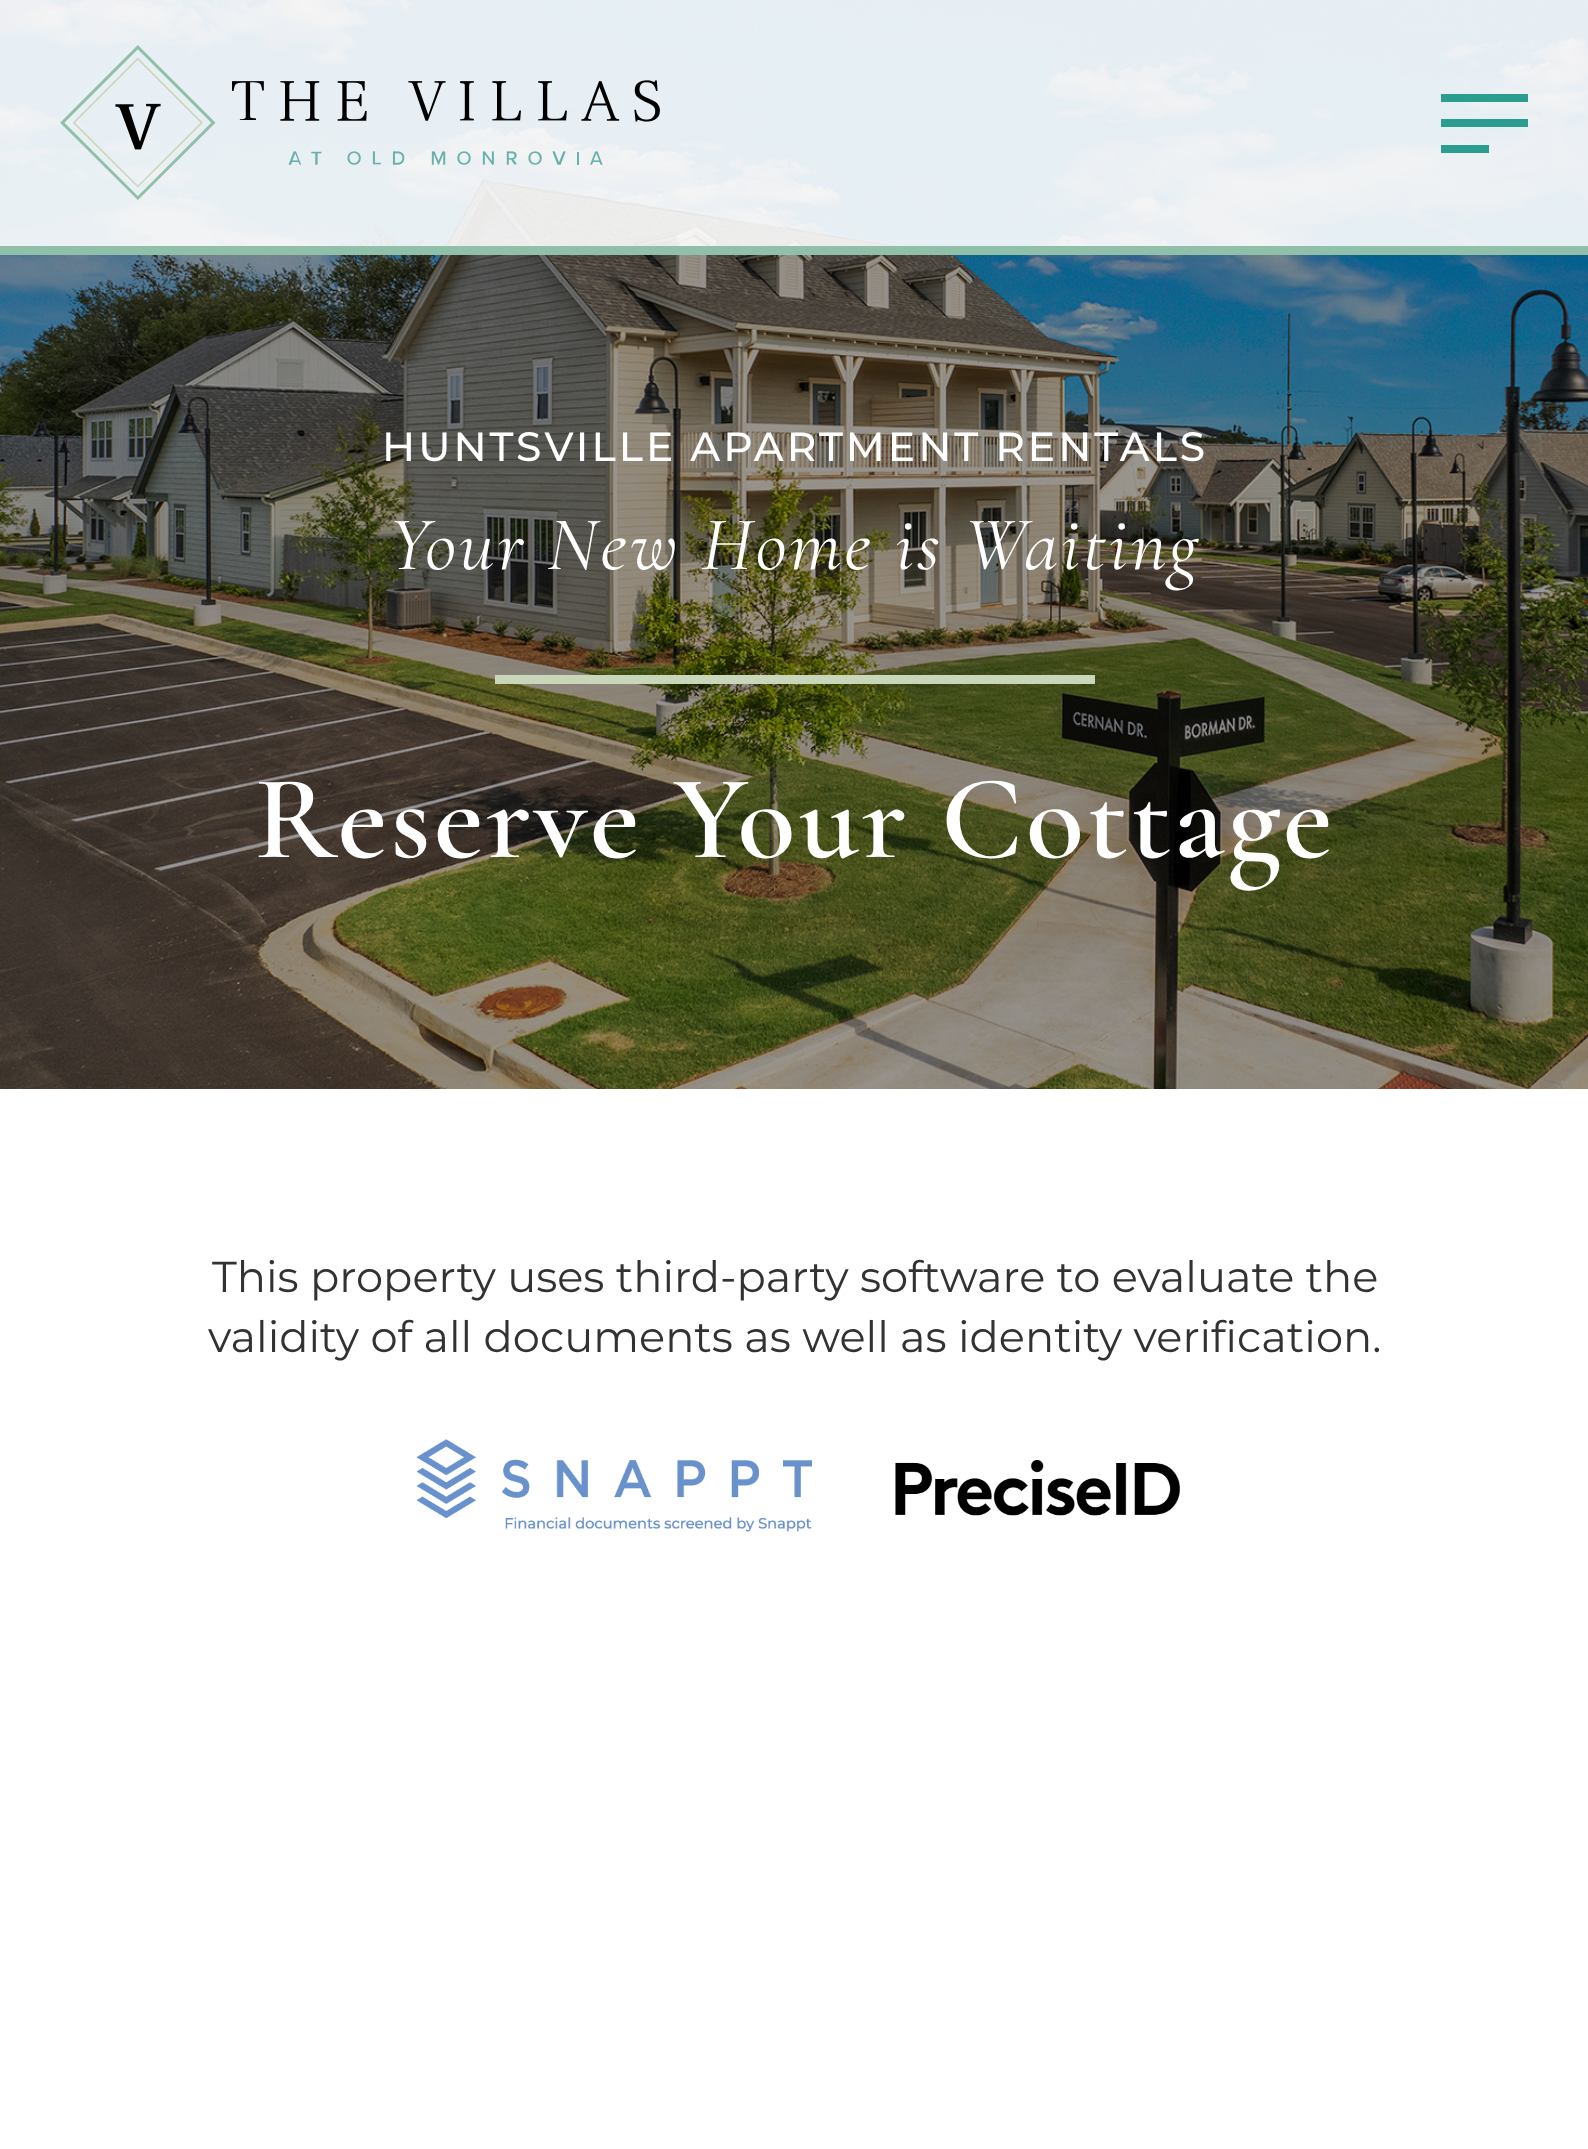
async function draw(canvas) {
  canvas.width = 1588;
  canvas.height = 2149;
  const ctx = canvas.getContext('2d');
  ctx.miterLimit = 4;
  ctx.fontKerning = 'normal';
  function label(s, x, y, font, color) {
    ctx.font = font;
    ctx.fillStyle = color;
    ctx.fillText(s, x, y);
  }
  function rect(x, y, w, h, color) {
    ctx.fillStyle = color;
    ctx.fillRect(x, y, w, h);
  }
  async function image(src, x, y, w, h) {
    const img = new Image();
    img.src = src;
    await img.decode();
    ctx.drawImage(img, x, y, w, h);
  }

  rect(0, 0, 1588, 2149, '#fff');
  await image('assets/img2.png', 0, 0, 1588, 1089);
  rect(0, 0, 1588, 246, '#ffffffe6');
  rect(0, 246, 1588, 9, '#90c0a9');
  await image('assets/img1.png', 60, 45, 600, 155);
  rect(1441, 94, 87, 8, '#2a9d8f');
  rect(1441, 119, 87, 8, '#2a9d8f');
  rect(1441, 145, 48, 8, '#2a9d8f');
  ctx.letterSpacing = '3px';
  label('HUNTSVILLE APARTMENT RENTALS', 382, 461, '500 40.8px Montserrat', '#fff');
  label('Your New Home is Waiting', 389, 569, 'italic 76.75px Cormorant Garamond', '#fff');
  rect(495, 675, 600, 9, '#c9d6ba');
  label('Reserve Your Cottage', 254, 857, '600 120px Cormorant Garamond', '#fff');
  ctx.letterSpacing = '0px';
  label('This property uses third-party software to evaluate the', 212, 1292, '43.2px Montserrat', '#323232');
  label('validity of all documents as well as identity verification.', 208, 1352, '43.2px Montserrat', '#323232');
  await image('assets/img3.png', 416, 1439, 396, 93);
  await image('assets/img4.png', 895, 1460, 285, 56);
}

draw(document.querySelector('canvas'));
